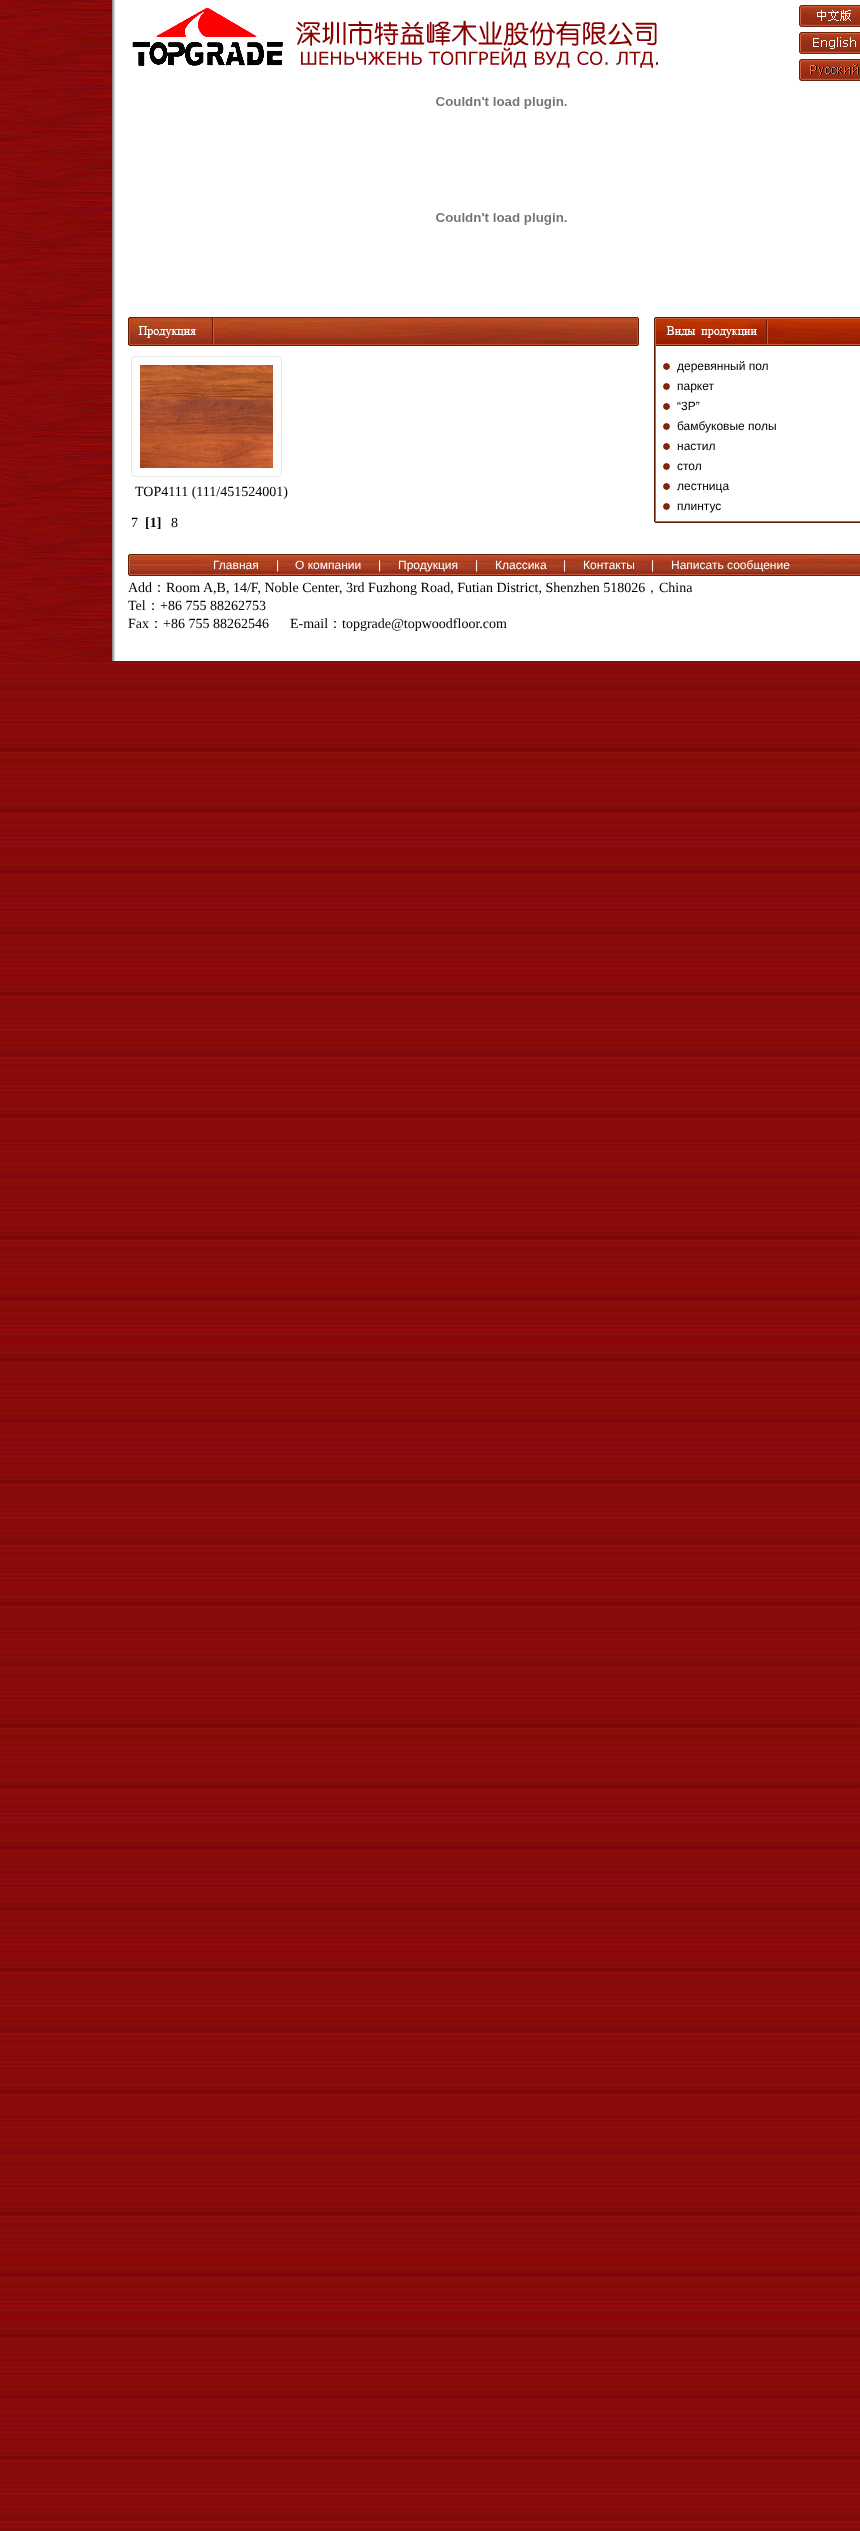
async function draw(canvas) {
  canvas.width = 860;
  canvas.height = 2531;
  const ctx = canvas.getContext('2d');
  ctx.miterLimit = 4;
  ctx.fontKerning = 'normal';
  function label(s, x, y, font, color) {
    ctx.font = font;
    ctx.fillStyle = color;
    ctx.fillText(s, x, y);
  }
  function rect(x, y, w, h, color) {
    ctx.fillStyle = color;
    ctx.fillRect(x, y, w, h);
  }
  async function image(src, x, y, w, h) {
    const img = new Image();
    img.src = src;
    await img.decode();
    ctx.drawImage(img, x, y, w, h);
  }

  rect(0, 0, 860, 2531, '#fff');
  await image('assets/img1.png', 0, 0, 860, 2531);
  await image('assets/img2.png', 3, 0, 112, 661);
  rect(115, 0, 745, 661, '#fff');
  await image('assets/img3.png', 129, 6, 158, 65);
  await image('assets/img4.png', 290, 16, 368, 56);
  await image('assets/img5.png', 799, 5, 61, 22);
  await image('assets/img6.png', 799, 32, 61, 22);
  await image('assets/img7.png', 799, 59, 61, 22);
  await image('assets/img8.png', 436, 97, 131, 12);
  await image('assets/img8.png', 436, 213, 131, 12);
  await image('assets/img9.png', 128, 317, 511, 29);
  await image('assets/img10.png', 131, 356, 151, 9);
  rect(131, 365, 1, 103, '#e6e6e6');
  await image('assets/img11.png', 140, 365, 133, 103);
  rect(281, 365, 1, 103, '#e6e6e6');
  await image('assets/img12.png', 131, 468, 151, 9);
  label('TOP4111 (111/451524001)', 135, 496, '14px Liberation Serif', '#000');
  label('7', 131, 527, '14px Liberation Serif', '#000');
  label('[1]', 145, 527, 'bold 14px Liberation Serif', '#000');
  label('8', 171, 527, '14px Liberation Serif', '#000');
  await image('assets/img13.png', 654, 317, 206, 29);
  await image('assets/img14.png', 654, 346, 2, 170);
  await image('assets/img15.png', 662, 362, 8, 8);
  label('деревянный пол', 677, 370, '12px Liberation Sans', '#000');
  await image('assets/img15.png', 662, 382, 8, 8);
  label('паркет', 677, 390, '12px Liberation Sans', '#000');
  await image('assets/img15.png', 662, 402, 8, 8);
  label('“3P”', 677, 410, '12px Liberation Sans', '#000');
  await image('assets/img15.png', 662, 422, 8, 8);
  label('бамбуковые полы', 677, 430, '12px Liberation Sans', '#000');
  await image('assets/img15.png', 662, 442, 8, 8);
  label('настил', 677, 450, '12px Liberation Sans', '#000');
  await image('assets/img15.png', 662, 462, 8, 8);
  label('стол', 677, 470, '12px Liberation Sans', '#000');
  await image('assets/img15.png', 662, 482, 8, 8);
  label('лестница', 677, 490, '12px Liberation Sans', '#000');
  await image('assets/img15.png', 662, 502, 8, 8);
  label('плинтус', 677, 510, '12px Liberation Sans', '#000');
  await image('assets/img16.png', 654, 516, 206, 7);
  await image('assets/img17.png', 128, 554, 732, 22);
  label('Главная', 213, 569, '12px Liberation Sans', '#fff');
  label('|', 276, 569, '12px Liberation Sans', '#fff');
  label('О компании', 295, 569, '12px Liberation Sans', '#fff');
  label('|', 378, 569, '12px Liberation Sans', '#fff');
  label('Продукция', 398, 569, '12px Liberation Sans', '#fff');
  label('|', 475, 569, '12px Liberation Sans', '#fff');
  label('Классика', 495, 569, '12px Liberation Sans', '#fff');
  label('|', 563, 569, '12px Liberation Sans', '#fff');
  label('Контакты', 583, 569, '12px Liberation Sans', '#fff');
  label('|', 651, 569, '12px Liberation Sans', '#fff');
  label('Написать сообщение', 671, 569, '12px Liberation Sans', '#fff');
  label('Add', 128, 592, '14px Liberation Serif', '#000');
  label('：', 152, 592, '500 14px WenQuanYi Zen Hei', '#000');
  label('Room A,B, 14/F, Noble Center, 3rd Fuzhong Road, Futian District, Shenzhen 518026', 166, 592, '14px Liberation Serif', '#000');
  label('，', 645, 592, '500 14px WenQuanYi Zen Hei', '#000');
  label('China', 659, 592, '14px Liberation Serif', '#000');
  label('Tel', 128, 610, '14px Liberation Serif', '#000');
  label('：', 146, 610, '500 14px WenQuanYi Zen Hei', '#000');
  label('+86 755 88262753', 160, 610, '14px Liberation Serif', '#000');
  label('Fax', 128, 628, '14px Liberation Serif', '#000');
  label('：', 149, 628, '500 14px WenQuanYi Zen Hei', '#000');
  label('+86 755 88262546', 163, 628, '14px Liberation Serif', '#000');
  label('E-mail', 290, 628, '14px Liberation Serif', '#000');
  label('：', 328, 628, '500 14px WenQuanYi Zen Hei', '#000');
  label('topgrade@topwoodfloor.com', 342, 628, '14px Liberation Serif', '#000');
}

draw(document.querySelector('canvas'));
